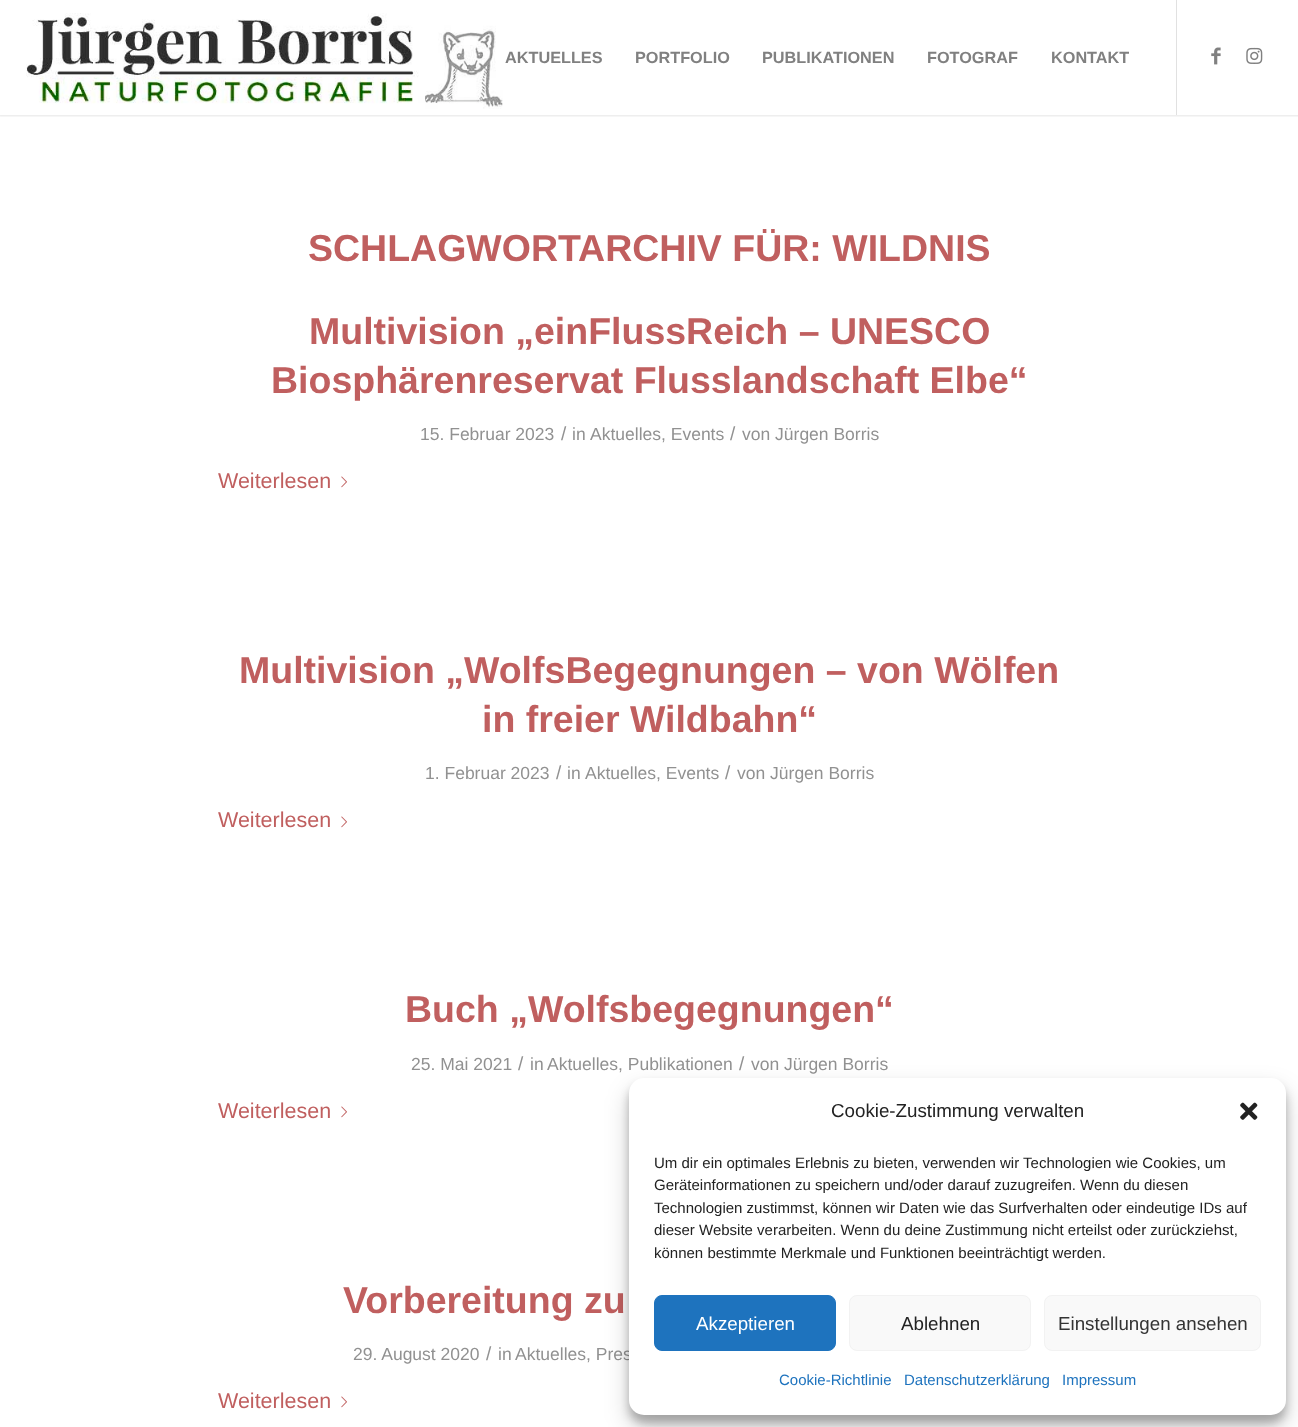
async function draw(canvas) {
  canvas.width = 1298;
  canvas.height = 1427;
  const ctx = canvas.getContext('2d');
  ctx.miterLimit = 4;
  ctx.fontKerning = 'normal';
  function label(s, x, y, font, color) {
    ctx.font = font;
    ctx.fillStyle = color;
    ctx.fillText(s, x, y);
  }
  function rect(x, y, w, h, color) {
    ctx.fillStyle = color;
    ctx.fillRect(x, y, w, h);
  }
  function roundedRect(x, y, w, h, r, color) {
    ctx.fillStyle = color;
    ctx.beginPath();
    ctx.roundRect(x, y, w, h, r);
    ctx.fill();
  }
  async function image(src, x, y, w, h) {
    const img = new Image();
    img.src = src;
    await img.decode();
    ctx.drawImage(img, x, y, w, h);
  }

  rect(0, 0, 1298, 1427, '#fff');
  ctx.save();
  ctx.beginPath();
  ctx.rect(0, 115, 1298, 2);
  ctx.clip();
  ctx.fillStyle = '#0000001a';
  ctx.filter = 'blur(1px)';
  ctx.beginPath();
  ctx.rect(-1, -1, 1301, 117);
  ctx.fill();
  ctx.filter = 'none';
  ctx.restore();
  await image('assets/img1.png', 26, 13, 477, 96);
  rect(1176, 0, 1, 115, '#e1e1e1');
  label('AKTUELLES', 505, 63, 'bold 16.25px Liberation Sans', '#808080');
  label('PORTFOLIO', 635, 63, 'bold 16.25px Liberation Sans', '#808080');
  label('PUBLIKATIONEN', 762, 63, 'bold 16.25px Liberation Sans', '#808080');
  label('FOTOGRAF', 927, 63, 'bold 16.25px Liberation Sans', '#808080');
  label('KONTAKT', 1051, 63, 'bold 16.25px Liberation Sans', '#808080');
  await image('assets/img2.png', 1211, 47, 10, 18);
  await image('assets/img3.png', 1246, 47, 17, 17);
  label('SCHLAGWORTARCHIV FÜR: WILDNIS', 308, 261, 'bold 37.5px Liberation Sans', '#c05f5f');
  label('Multivision „einFlussReich – UNESCO', 309, 344, 'bold 37.5px Liberation Sans', '#c05f5f');
  label('Biosphärenreservat Flusslandschaft Elbe“', 271, 393, 'bold 37.5px Liberation Sans', '#c05f5f');
  label('15. Februar 2023', 420, 440, '17.5px Liberation Sans', '#919191');
  label('/', 561, 440, '19px Liberation Sans', '#919191');
  label('in', 572, 440, '17.5px Liberation Sans', '#919191');
  label('Aktuelles, Events', 590, 440, '17.5px Liberation Sans', '#919191');
  label('/', 730, 440, '19px Liberation Sans', '#919191');
  label('von Jürgen Borris', 742, 440, '17.5px Liberation Sans', '#919191');
  label('Weiterlesen', 218, 488, '21.5px Liberation Sans', '#c05f5f');
  await image('assets/img4.png', 341, 476, 6, 12);
  label('Multivision „WolfsBegegnungen – von Wölfen', 239, 683, 'bold 37.5px Liberation Sans', '#c05f5f');
  label('in freier Wildbahn“', 482, 732, 'bold 37.5px Liberation Sans', '#c05f5f');
  label('1. Februar 2023', 425, 779, '17.5px Liberation Sans', '#919191');
  label('/', 556, 779, '19px Liberation Sans', '#919191');
  label('in', 567, 779, '17.5px Liberation Sans', '#919191');
  label('Aktuelles, Events', 585, 779, '17.5px Liberation Sans', '#919191');
  label('/', 725, 779, '19px Liberation Sans', '#919191');
  label('von Jürgen Borris', 737, 779, '17.5px Liberation Sans', '#919191');
  label('Weiterlesen', 218, 827, '21.5px Liberation Sans', '#c05f5f');
  await image('assets/img4.png', 341, 816, 6, 12);
  label('Buch „Wolfsbegegnungen“', 405, 1022, 'bold 37.5px Liberation Sans', '#c05f5f');
  label('25. Mai 2021', 411, 1070, '17.5px Liberation Sans', '#919191');
  label('/', 518, 1070, '19px Liberation Sans', '#919191');
  label('in', 530, 1070, '17.5px Liberation Sans', '#919191');
  label('Aktuelles, Publikationen', 547, 1070, '17.5px Liberation Sans', '#919191');
  label('/', 739, 1070, '19px Liberation Sans', '#919191');
  label('von Jürgen Borris', 751, 1070, '17.5px Liberation Sans', '#919191');
  label('Weiterlesen', 218, 1118, '21.5px Liberation Sans', '#c05f5f');
  await image('assets/img4.png', 341, 1106, 6, 12);
  label('Vorbereitung zu', 343, 1313, 'bold 37.5px Liberation Sans', '#c05f5f');
  label('29. August 2020', 353, 1360, '17.5px Liberation Sans', '#919191');
  label('/', 486, 1360, '19px Liberation Sans', '#919191');
  label('in', 498, 1360, '17.5px Liberation Sans', '#919191');
  label('Aktuelles, Pres', 515, 1360, '17.5px Liberation Sans', '#919191');
  label('Weiterlesen', 218, 1408, '21.5px Liberation Sans', '#c05f5f');
  await image('assets/img4.png', 341, 1396, 6, 12);
  ctx.fillStyle = '#0000003b';
  ctx.filter = 'blur(4px)';
  ctx.beginPath();
  ctx.roundRect(629, 1085, 657, 338, 15);
  ctx.fill();
  ctx.filter = 'none';
  ctx.fillStyle = '#00000030';
  ctx.filter = 'blur(12.5px)';
  ctx.beginPath();
  ctx.roundRect(629, 1090, 657, 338, 15);
  ctx.fill();
  ctx.filter = 'none';
  roundedRect(629, 1078, 657, 337, 15, '#fff');
  label('Cookie-Zustimmung verwalten', 831, 1117, '18.75px Liberation Sans', '#222');
  await image('assets/img5.png', 1240, 1102, 18, 18);
  label('Um dir ein optimales Erlebnis zu bieten, verwenden wir Technologien wie Cookies, um', 654, 1168, '15px Liberation Sans', '#222');
  label('Geräteinformationen zu speichern und/oder darauf zuzugreifen. Wenn du diesen', 654, 1190, '15px Liberation Sans', '#222');
  label('Technologien zustimmst, können wir Daten wie das Surfverhalten oder eindeutige IDs auf', 654, 1213, '15px Liberation Sans', '#222');
  label('dieser Website verarbeiten. Wenn du deine Zustimmung nicht erteilst oder zurückziehst,', 654, 1235, '15px Liberation Sans', '#222');
  label('können bestimmte Merkmale und Funktionen beeinträchtigt werden.', 654, 1258, '15px Liberation Sans', '#222');
  ctx.fillStyle = '#1e73be';
  ctx.beginPath();
  ctx.roundRect(654.5, 1295.5, 181, 55, 7.5);
  ctx.fill();
  ctx.strokeStyle = '#1e73be';
  ctx.stroke();
  label('Akzeptieren', 696, 1330, '18.75px Liberation Sans', '#fff');
  ctx.fillStyle = '#f9f9f9';
  ctx.beginPath();
  ctx.roundRect(849.5, 1295.5, 181, 55, 7.5);
  ctx.fill();
  ctx.strokeStyle = '#f2f2f2';
  ctx.stroke();
  label('Ablehnen', 901, 1330, '18.75px Liberation Sans', '#222');
  ctx.fillStyle = '#f9f9f9';
  ctx.beginPath();
  ctx.roundRect(1044.5, 1295.5, 216, 55, 7.5);
  ctx.fill();
  ctx.stroke();
  label('Einstellungen ansehen', 1058, 1330, '18.75px Liberation Sans', '#333');
  label('Cookie-Richtlinie', 779, 1385, '15px Liberation Sans', '#1e73be');
  label('Datenschutzerklärung', 904, 1385, '15px Liberation Sans', '#1e73be');
  label('Impressum', 1062, 1385, '15px Liberation Sans', '#1e73be');
}

draw(document.querySelector('canvas'));
